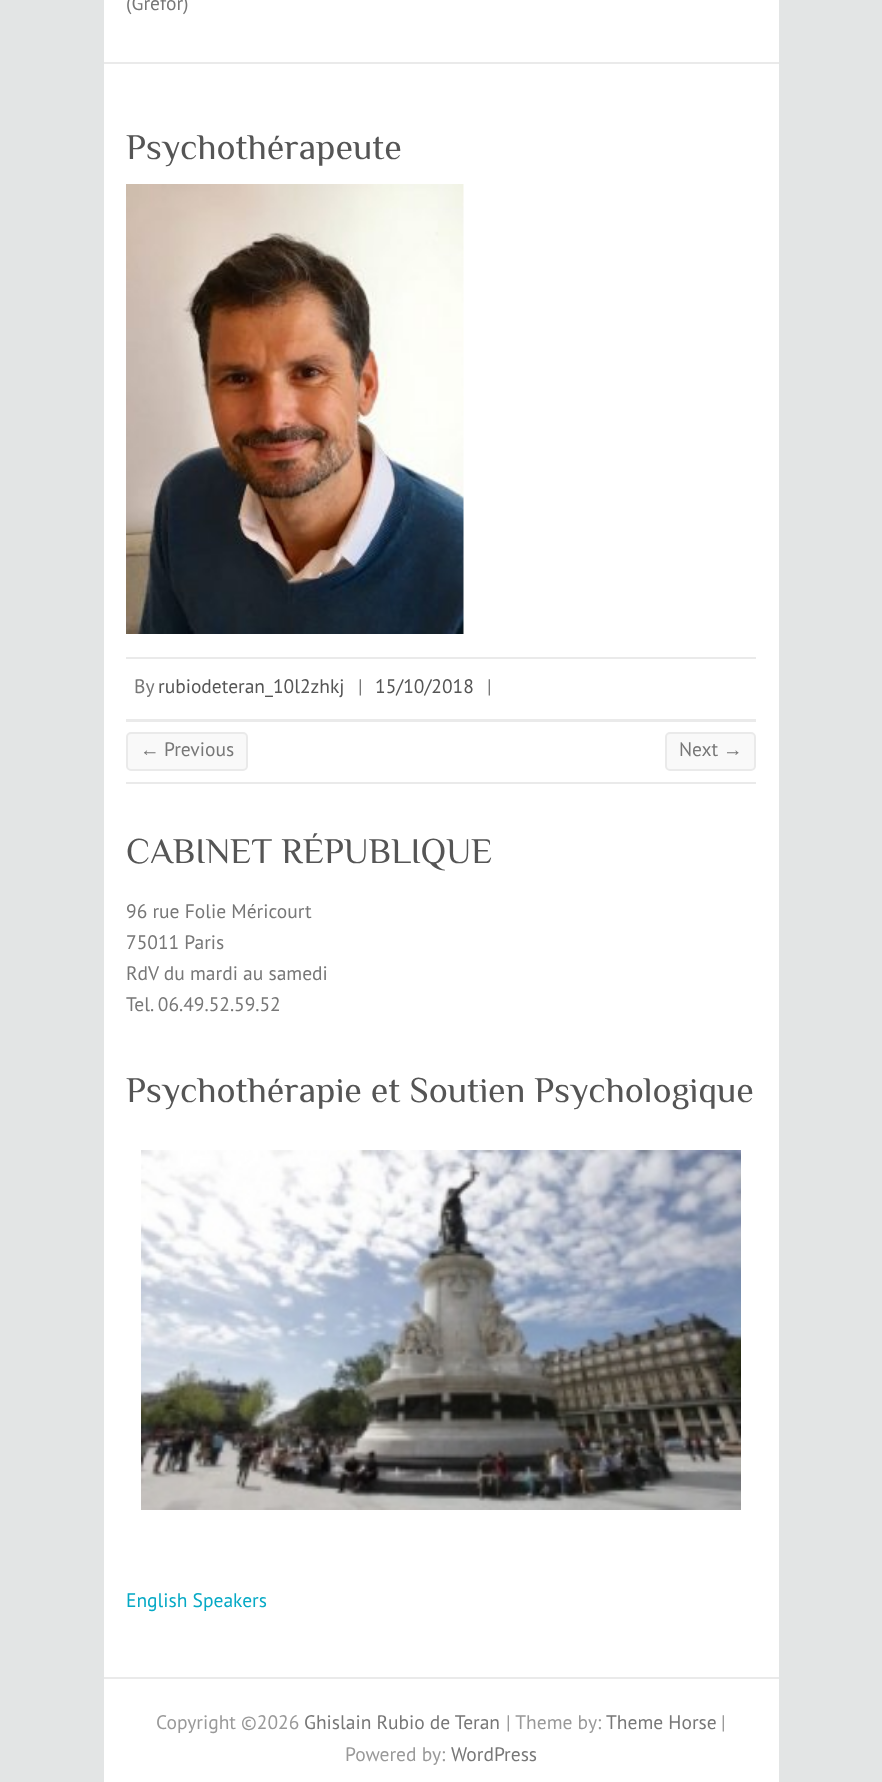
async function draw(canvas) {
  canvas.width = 882;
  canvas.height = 1782;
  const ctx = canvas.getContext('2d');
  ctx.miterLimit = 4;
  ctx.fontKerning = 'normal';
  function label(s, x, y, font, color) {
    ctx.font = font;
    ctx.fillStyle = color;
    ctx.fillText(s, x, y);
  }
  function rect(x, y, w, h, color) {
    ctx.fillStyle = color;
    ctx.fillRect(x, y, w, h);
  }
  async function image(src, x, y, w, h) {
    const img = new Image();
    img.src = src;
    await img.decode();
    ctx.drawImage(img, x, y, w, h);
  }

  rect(0, 0, 882, 1782, '#e3e5e5');
  rect(104, 0, 675, 1782, '#fff');
  label('(Grefor)', 126, 10, '19.5px PT Sans', '#777');
  rect(104, 62, 675, 2, '#eaeaea');
  label('Psychothérapeute', 126, 159, '36px Philosopher', '#555');
  await image('assets/img1.png', 126, 184, 338, 450);
  rect(126, 657, 630, 2, '#eaeaea');
  rect(126, 719, 630, 3, '#eaeaea');
  label('By', 134, 693, '19.5px PT Sans', '#777');
  label('rubiodeteran_10l2zhkj', 158, 693, '19.5px PT Sans', '#555');
  label('|', 358, 693, '19.5px PT Sans', '#777');
  label('15/10/2018', 375, 693, '19.5px PT Sans', '#555');
  label('|', 487, 693, '19.5px PT Sans', '#777');
  rect(126, 782, 630, 2, '#eaeaea');
  ctx.fillStyle = '#f9f9f9';
  ctx.beginPath();
  ctx.roundRect(127, 733, 120, 37, 4);
  ctx.fill();
  ctx.strokeStyle = '#eaeaea';
  ctx.lineWidth = 2;
  ctx.stroke();
  label('←', 140, 756, '19.5px Liberation Sans', '#777');
  label('Previous', 164, 756, '19.5px PT Sans', '#777');
  ctx.fillStyle = '#f9f9f9';
  ctx.beginPath();
  ctx.roundRect(666, 733, 89, 37, 4);
  ctx.fill();
  ctx.stroke();
  label('Next', 679, 756, '19.5px PT Sans', '#777');
  label('→', 723, 756, '19.5px Liberation Sans', '#777');
  label('CABINET RÉPUBLIQUE', 126, 863, '36px Philosopher', '#555');
  label('96 rue Folie Méricourt', 126, 918, '19.5px PT Sans', '#777');
  label('75011 Paris', 126, 949, '19.5px PT Sans', '#777');
  label('RdV du mardi au samedi', 126, 980, '19.5px PT Sans', '#777');
  label('Tel. 06.49.52.59.52', 126, 1011, '19.5px PT Sans', '#777');
  label('Psychothérapie et Soutien Psychologique', 126, 1102, '36px Philosopher', '#555');
  await image('assets/img2.png', 141, 1150, 600, 360);
  label('English Speakers', 126, 1607, '19.5px PT Sans', '#05a9c5');
  rect(104, 1677, 675, 2, '#eaeaea');
  label('Copyright ©2026', 156, 1729, '19.5px PT Sans', '#999');
  label('Ghislain Rubio de Teran', 304, 1729, '19.5px PT Sans', '#777');
  label('| Theme by:', 506, 1729, '19.5px PT Sans', '#999');
  label('Theme Horse', 606, 1729, '19.5px PT Sans', '#777');
  label('|', 721, 1729, '19.5px PT Sans', '#999');
  label('Powered by:', 345, 1761, '19.5px PT Sans', '#999');
  label('WordPress', 451, 1761, '19.5px PT Sans', '#777');
}

draw(document.querySelector('canvas'));
